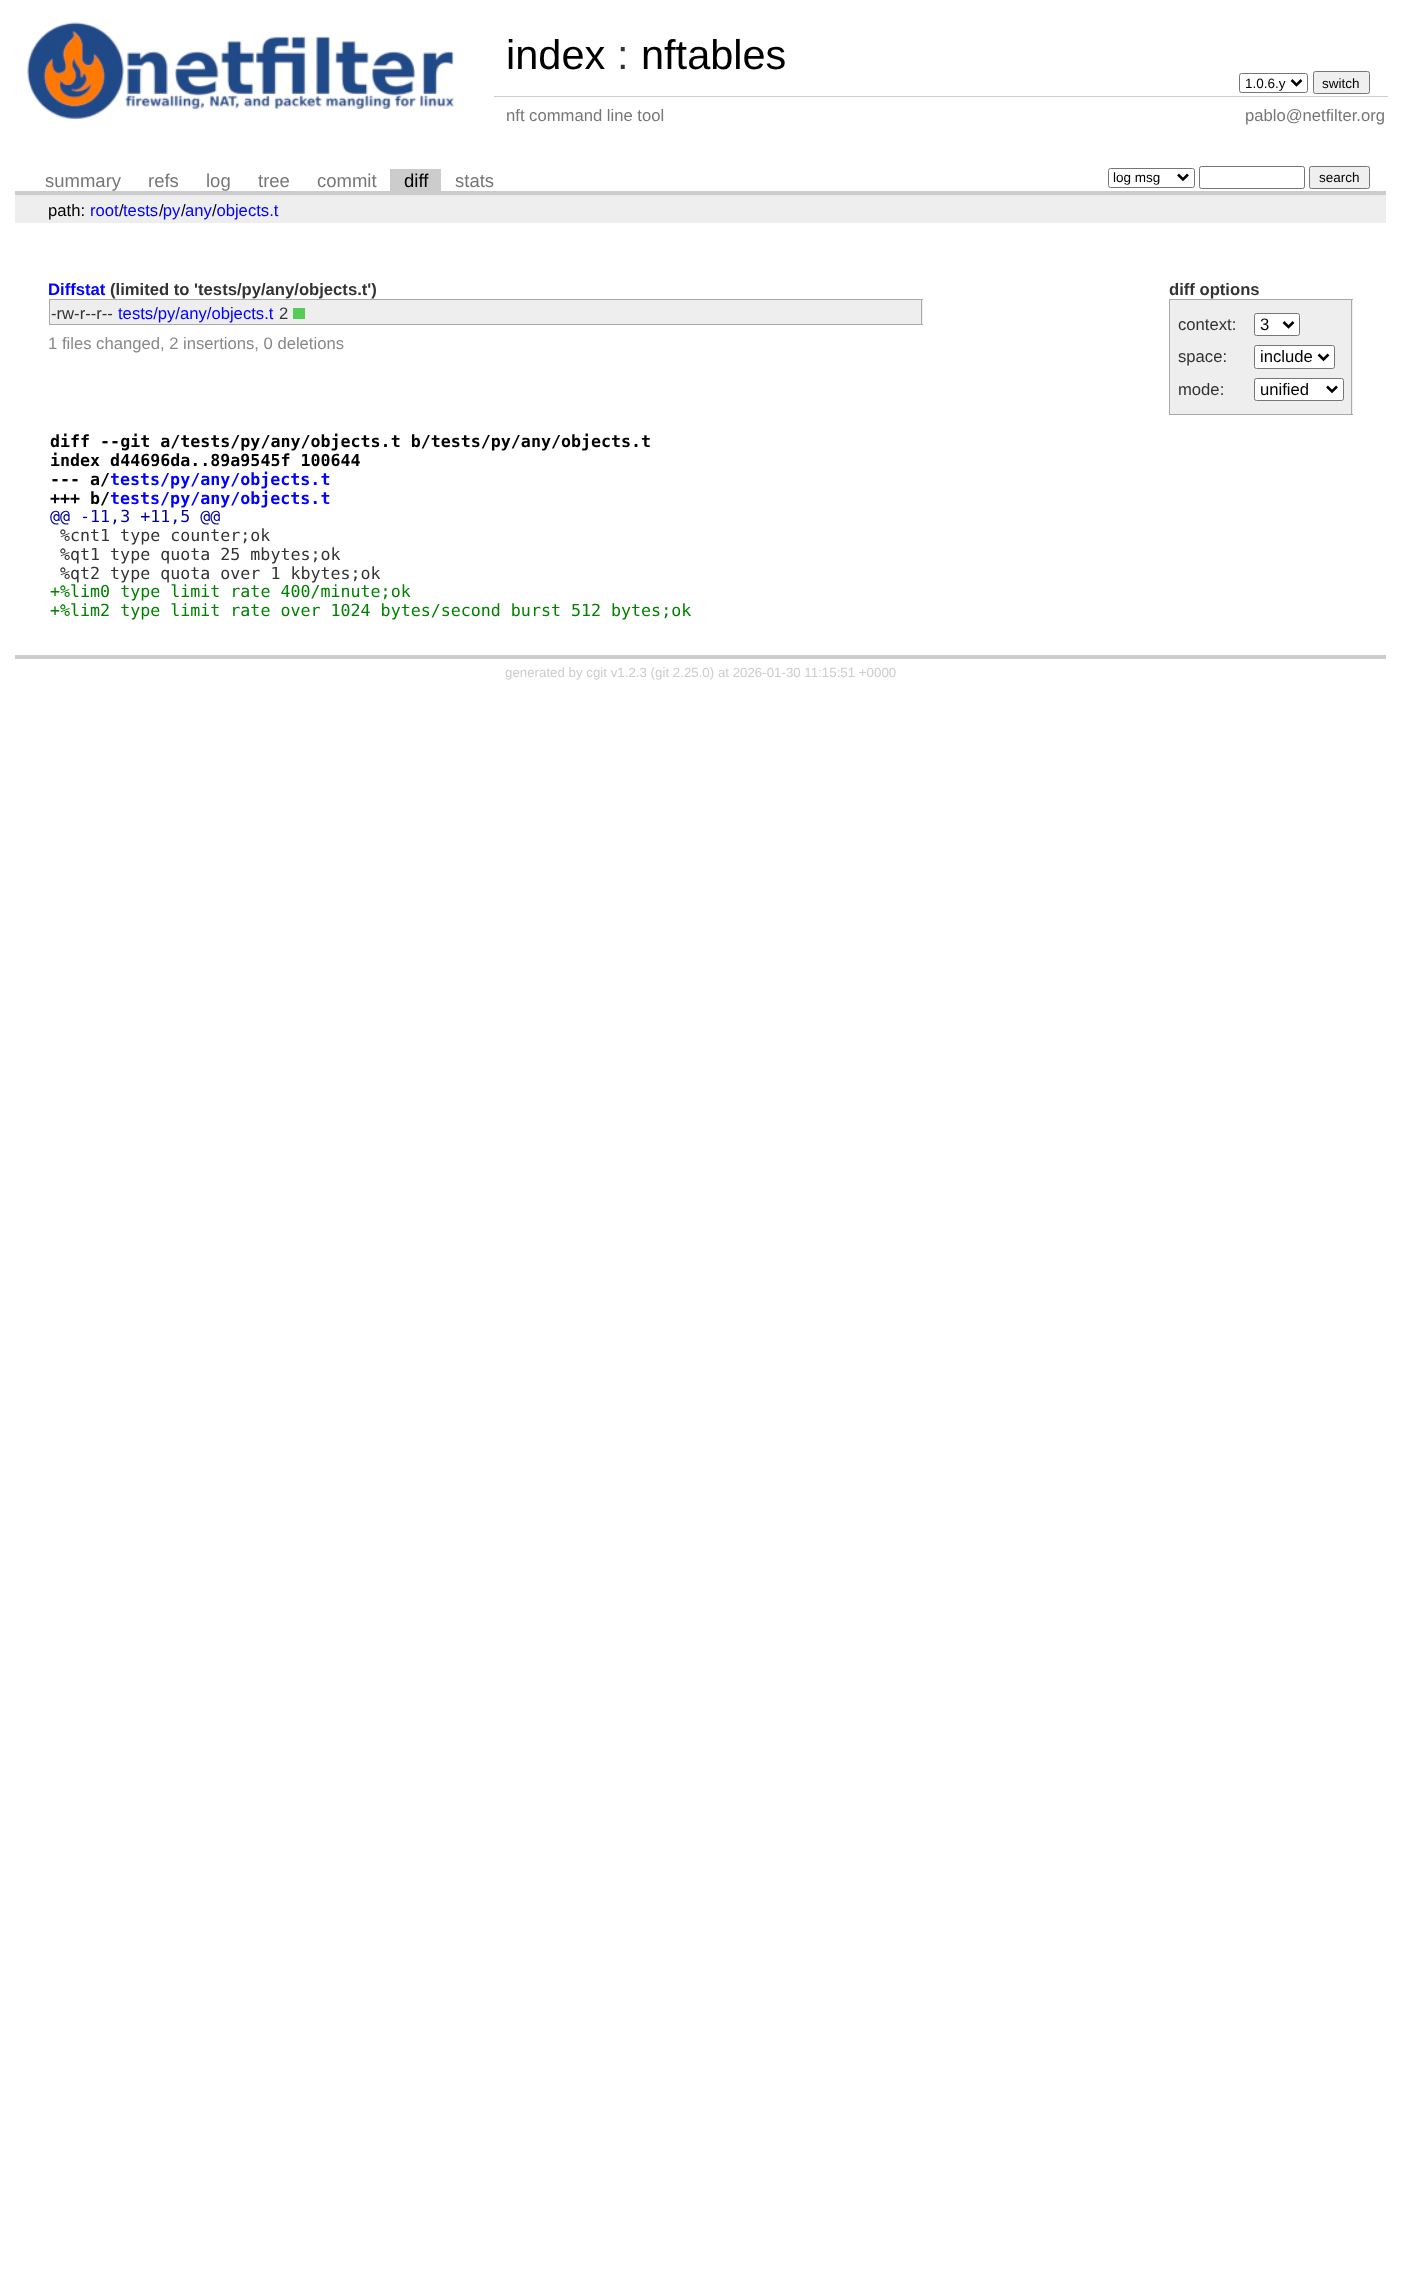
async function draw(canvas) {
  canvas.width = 1401;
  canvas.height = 2294;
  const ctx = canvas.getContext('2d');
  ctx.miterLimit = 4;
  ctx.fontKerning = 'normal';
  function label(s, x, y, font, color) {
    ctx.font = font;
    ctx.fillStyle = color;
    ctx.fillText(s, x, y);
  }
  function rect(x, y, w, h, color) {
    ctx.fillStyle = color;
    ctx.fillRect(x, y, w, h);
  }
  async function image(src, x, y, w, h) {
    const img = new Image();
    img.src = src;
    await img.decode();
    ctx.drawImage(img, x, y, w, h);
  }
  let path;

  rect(0, 0, 1401, 2294, '#fff');
  await image('assets/img1.png', 27, 22, 427, 98);
  label('index', 506, 69, '41.5px Liberation Sans', '#000');
  label(':', 617, 69, '41.5px Liberation Sans', '#333');
  label('nftables', 641, 69, '41.5px Liberation Sans', '#000');
  ctx.beginPath();
  ctx.roundRect(1239.5, 73.5, 68, 19, 2);
  ctx.strokeStyle = '#767676';
  ctx.stroke();
  path = new Path2D('M1291.5 80L1296.5 85L1301.5 80');
  ctx.strokeStyle = '#000';
  ctx.lineWidth = 2.5;
  ctx.stroke(path);
  label('1.0.6.y', 1245, 88, '13.5px Liberation Sans', '#000');
  ctx.fillStyle = '#efefef';
  ctx.beginPath();
  ctx.roundRect(1313.5, 71.5, 56, 22, 2);
  ctx.fill();
  ctx.strokeStyle = '#767676';
  ctx.lineWidth = 1;
  ctx.stroke();
  label('switch', 1322, 88, '13.5px Liberation Sans', '#000');
  label('nft command line tool', 506, 121, '16.65px Liberation Sans', '#777');
  rect(494, 96, 894, 1, '#ccc');
  label('pablo@netfilter.org', 1245, 121, '16.65px Liberation Sans', '#777');
  rect(15, 191, 1371, 4, '#ccc');
  label('summary', 45, 187, '18.5px Liberation Sans', '#777');
  label('refs', 148, 187, '18.5px Liberation Sans', '#777');
  label('log', 206, 187, '18.5px Liberation Sans', '#777');
  label('tree', 258, 187, '18.5px Liberation Sans', '#777');
  label('commit', 317, 187, '18.5px Liberation Sans', '#777');
  rect(390, 169, 51, 22, '#ccc');
  label('diff', 404, 187, '18.5px Liberation Sans', '#000');
  label('stats', 455, 187, '18.5px Liberation Sans', '#777');
  ctx.beginPath();
  ctx.roundRect(1108.5, 168.5, 86, 19, 2);
  ctx.stroke();
  path = new Path2D('M1178 174.5L1183 179.5L1188 174.5');
  ctx.strokeStyle = '#000';
  ctx.lineWidth = 2.5;
  ctx.stroke(path);
  label('log msg', 1113, 182, '13.5px Liberation Sans', '#000');
  ctx.beginPath();
  ctx.roundRect(1199.5, 166.5, 105, 22, 2);
  ctx.strokeStyle = '#767676';
  ctx.lineWidth = 1;
  ctx.stroke();
  ctx.fillStyle = '#efefef';
  ctx.beginPath();
  ctx.roundRect(1309.5, 166.5, 60, 22, 2);
  ctx.fill();
  ctx.stroke();
  label('search', 1319, 182, '13.5px Liberation Sans', '#000');
  rect(15, 195, 1371, 28, '#eee');
  label('path:', 48, 216, '16.65px Liberation Sans', '#000');
  label('root', 90, 216, '16.65px Liberation Sans', '#00f');
  label('/', 119, 216, '16.65px Liberation Sans', '#000');
  label('tests py any objects.t', 123, 216, '16.65px Liberation Sans', '#00f');
  label('/', 159, 216, '16.65px Liberation Sans', '#000');
  label('/', 181, 216, '16.65px Liberation Sans', '#000');
  label('/', 212, 216, '16.65px Liberation Sans', '#000');
  rect(15, 655, 1371, 4, '#ccc');
  label('Diffstat', 48, 295, 'bold 16.65px Liberation Sans', '#00f');
  label('(limited to \'tests/py/any/objects.t\')', 110, 295, 'bold 16.65px Liberation Sans', '#333');
  label('diff options', 1169, 295, 'bold 16.65px Liberation Sans', '#333');
  rect(1170, 300, 183, 114, '#eee');
  rect(1169, 299, 184, 1, '#aaa');
  rect(1351, 299, 1, 116, '#aaa');
  rect(1169, 414, 184, 1, '#aaa');
  rect(1169, 299, 1, 116, '#aaa');
  label('context:', 1178, 330, '16.65px Liberation Sans', '#333');
  ctx.fillStyle = '#fff';
  ctx.beginPath();
  ctx.roundRect(1254.5, 313.5, 45, 22, 2);
  ctx.fill();
  ctx.stroke();
  path = new Path2D('M1283.5 322L1288.5 327L1293.5 322');
  ctx.strokeStyle = '#000';
  ctx.lineWidth = 2.5;
  ctx.stroke(path);
  label('3', 1260, 330, '16.65px Liberation Sans', '#000');
  label('space:', 1178, 362, '16.65px Liberation Sans', '#333');
  ctx.fillStyle = '#fff';
  ctx.beginPath();
  ctx.roundRect(1254.5, 345.5, 80, 23, 2);
  ctx.fill();
  ctx.strokeStyle = '#767676';
  ctx.lineWidth = 1;
  ctx.stroke();
  path = new Path2D('M1318.5 354.5L1323.5 359.5L1328.5 354.5');
  ctx.strokeStyle = '#000';
  ctx.lineWidth = 2.5;
  ctx.stroke(path);
  label('include', 1260, 362, '16.65px Liberation Sans', '#000');
  label('mode:', 1178, 395, '16.65px Liberation Sans', '#333');
  ctx.fillStyle = '#fff';
  ctx.beginPath();
  ctx.roundRect(1254.5, 378.5, 89, 22, 2);
  ctx.fill();
  ctx.strokeStyle = '#767676';
  ctx.lineWidth = 1;
  ctx.stroke();
  path = new Path2D('M1327 386.5L1332 391.5L1337 386.5');
  ctx.strokeStyle = '#000';
  ctx.lineWidth = 2.5;
  ctx.stroke(path);
  label('unified', 1260, 395, '16.65px Liberation Sans', '#000');
  rect(50, 300, 873, 24, '#eee');
  rect(49, 299, 874, 1, '#aaa');
  rect(921, 299, 1, 26, '#aaa');
  rect(49, 324, 874, 1, '#aaa');
  rect(49, 299, 1, 26, '#aaa');
  label('-rw-r--r--', 51, 319, '16.65px Liberation Sans', '#333');
  label('tests/py/any/objects.t', 118, 319, '16.65px Liberation Sans', '#00f');
  label('2', 279, 319, '16.65px Liberation Sans', '#333');
  rect(293, 308, 12, 11, '#5c5');
  label('1 files changed, 2 insertions, 0 deletions', 48, 349, '16.65px Liberation Sans', '#888');
  label('diff --git a/tests/py/any/objects.t b/tests/py/any/objects.t', 50, 447, 'bold 16.65px DejaVu Sans Mono', '#000');
  label('index d44696da..89a9545f 100644', 50, 466, 'bold 16.65px DejaVu Sans Mono', '#000');
  label('--- a/', 50, 485, 'bold 16.65px DejaVu Sans Mono', '#000');
  label('tests/py/any/objects.t', 110, 485, 'bold 16.65px DejaVu Sans Mono', '#00f');
  label('+++ b/', 50, 504, 'bold 16.65px DejaVu Sans Mono', '#000');
  label('tests/py/any/objects.t', 110, 504, 'bold 16.65px DejaVu Sans Mono', '#00f');
  label('@@ -11,3 +11,5 @@', 50, 522, '16.65px DejaVu Sans Mono', '#009');
  label('%cnt1 type counter;ok', 60, 541, '16.65px DejaVu Sans Mono', '#333');
  label('%qt1 type quota 25 mbytes;ok', 60, 560, '16.65px DejaVu Sans Mono', '#333');
  label('%qt2 type quota over 1 kbytes;ok', 60, 579, '16.65px DejaVu Sans Mono', '#333');
  label('+%lim0 type limit rate 400/minute;ok', 50, 597, '16.65px DejaVu Sans Mono', '#008000');
  label('+%lim2 type limit rate over 1024 bytes/second burst 512 bytes;ok', 50, 616, '16.65px DejaVu Sans Mono', '#008000');
  label('generated by cgit v1.2.3 (git 2.25.0) at 2026-01-30 11:15:51 +0000', 505, 677, '13.3px Liberation Sans', '#ccc');
}

draw(document.querySelector('canvas'));
